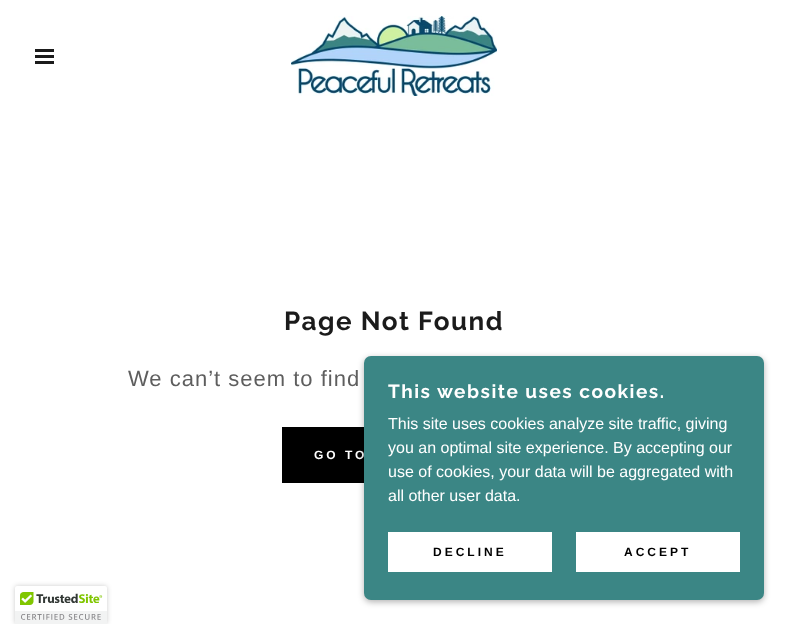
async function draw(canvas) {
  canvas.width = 788;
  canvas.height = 624;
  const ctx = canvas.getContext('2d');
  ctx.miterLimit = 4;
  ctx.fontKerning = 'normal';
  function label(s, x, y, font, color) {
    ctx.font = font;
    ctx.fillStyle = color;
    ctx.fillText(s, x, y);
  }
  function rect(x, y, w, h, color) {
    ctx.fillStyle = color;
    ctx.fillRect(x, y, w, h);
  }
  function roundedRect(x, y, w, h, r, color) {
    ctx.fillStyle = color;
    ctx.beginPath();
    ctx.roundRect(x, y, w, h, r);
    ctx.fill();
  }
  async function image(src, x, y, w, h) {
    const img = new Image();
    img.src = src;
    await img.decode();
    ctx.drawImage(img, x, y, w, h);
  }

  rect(0, 0, 788, 624, '#fff');
  rect(35, 49, 19, 3, '#1b1b1b');
  rect(35, 55, 19, 3, '#1b1b1b');
  rect(35, 61, 19, 3, '#1b1b1b');
  await image('assets/img1.png', 291, 16, 206, 80);
  ctx.letterSpacing = '1.5px';
  label('Page Not Found', 284, 330, 'bold 26px Raleway', '#1b1b1b');
  ctx.letterSpacing = '1px';
  label('We can’t seem to find', 128, 386, '22px Liberation Sans', '#5e5e5e');
  rect(282, 427, 82, 56, '#000');
  ctx.letterSpacing = '3px';
  label('GO TO', 314, 459, 'bold 12px Liberation Sans', '#fff');
  ctx.fillStyle = '#0000004d';
  ctx.filter = 'blur(3px)';
  ctx.beginPath();
  ctx.roundRect(364, 358, 400, 244, 7);
  ctx.fill();
  ctx.filter = 'none';
  roundedRect(364, 356, 400, 244, 7, '#3b8685');
  ctx.letterSpacing = '1.5px';
  label('This website uses cookies.', 388, 398, 'bold 19px Raleway', '#fff');
  ctx.letterSpacing = '0px';
  label('This site uses cookies analyze site traffic, giving', 388, 429, '16px Liberation Sans', '#fff');
  label('you an optimal site experience. By accepting our', 388, 453, '16px Liberation Sans', '#fff');
  label('use of cookies, your data will be aggregated with', 388, 477, '16px Liberation Sans', '#fff');
  label('all other user data.', 388, 501, '16px Liberation Sans', '#fff');
  rect(388, 532, 164, 40, '#fff');
  ctx.letterSpacing = '3px';
  label('DECLINE', 433, 556, 'bold 12px Liberation Sans', '#000');
  rect(576, 532, 164, 40, '#fff');
  label('ACCEPT', 624, 556, 'bold 12px Liberation Sans', '#000');
  ctx.fillStyle = '#00000033';
  ctx.filter = 'blur(2.5px)';
  ctx.beginPath();
  ctx.roundRect(15, 586, 92, 38, 2);
  ctx.fill();
  ctx.filter = 'none';
  ctx.fillStyle = '#fff';
  ctx.beginPath();
  ctx.roundRect(15, 586, 92, 38, [2, 2, 0, 0]);
  ctx.fill();
  await image('assets/img2.png', 15, 592, 92, 32);
}

draw(document.querySelector('canvas'));
